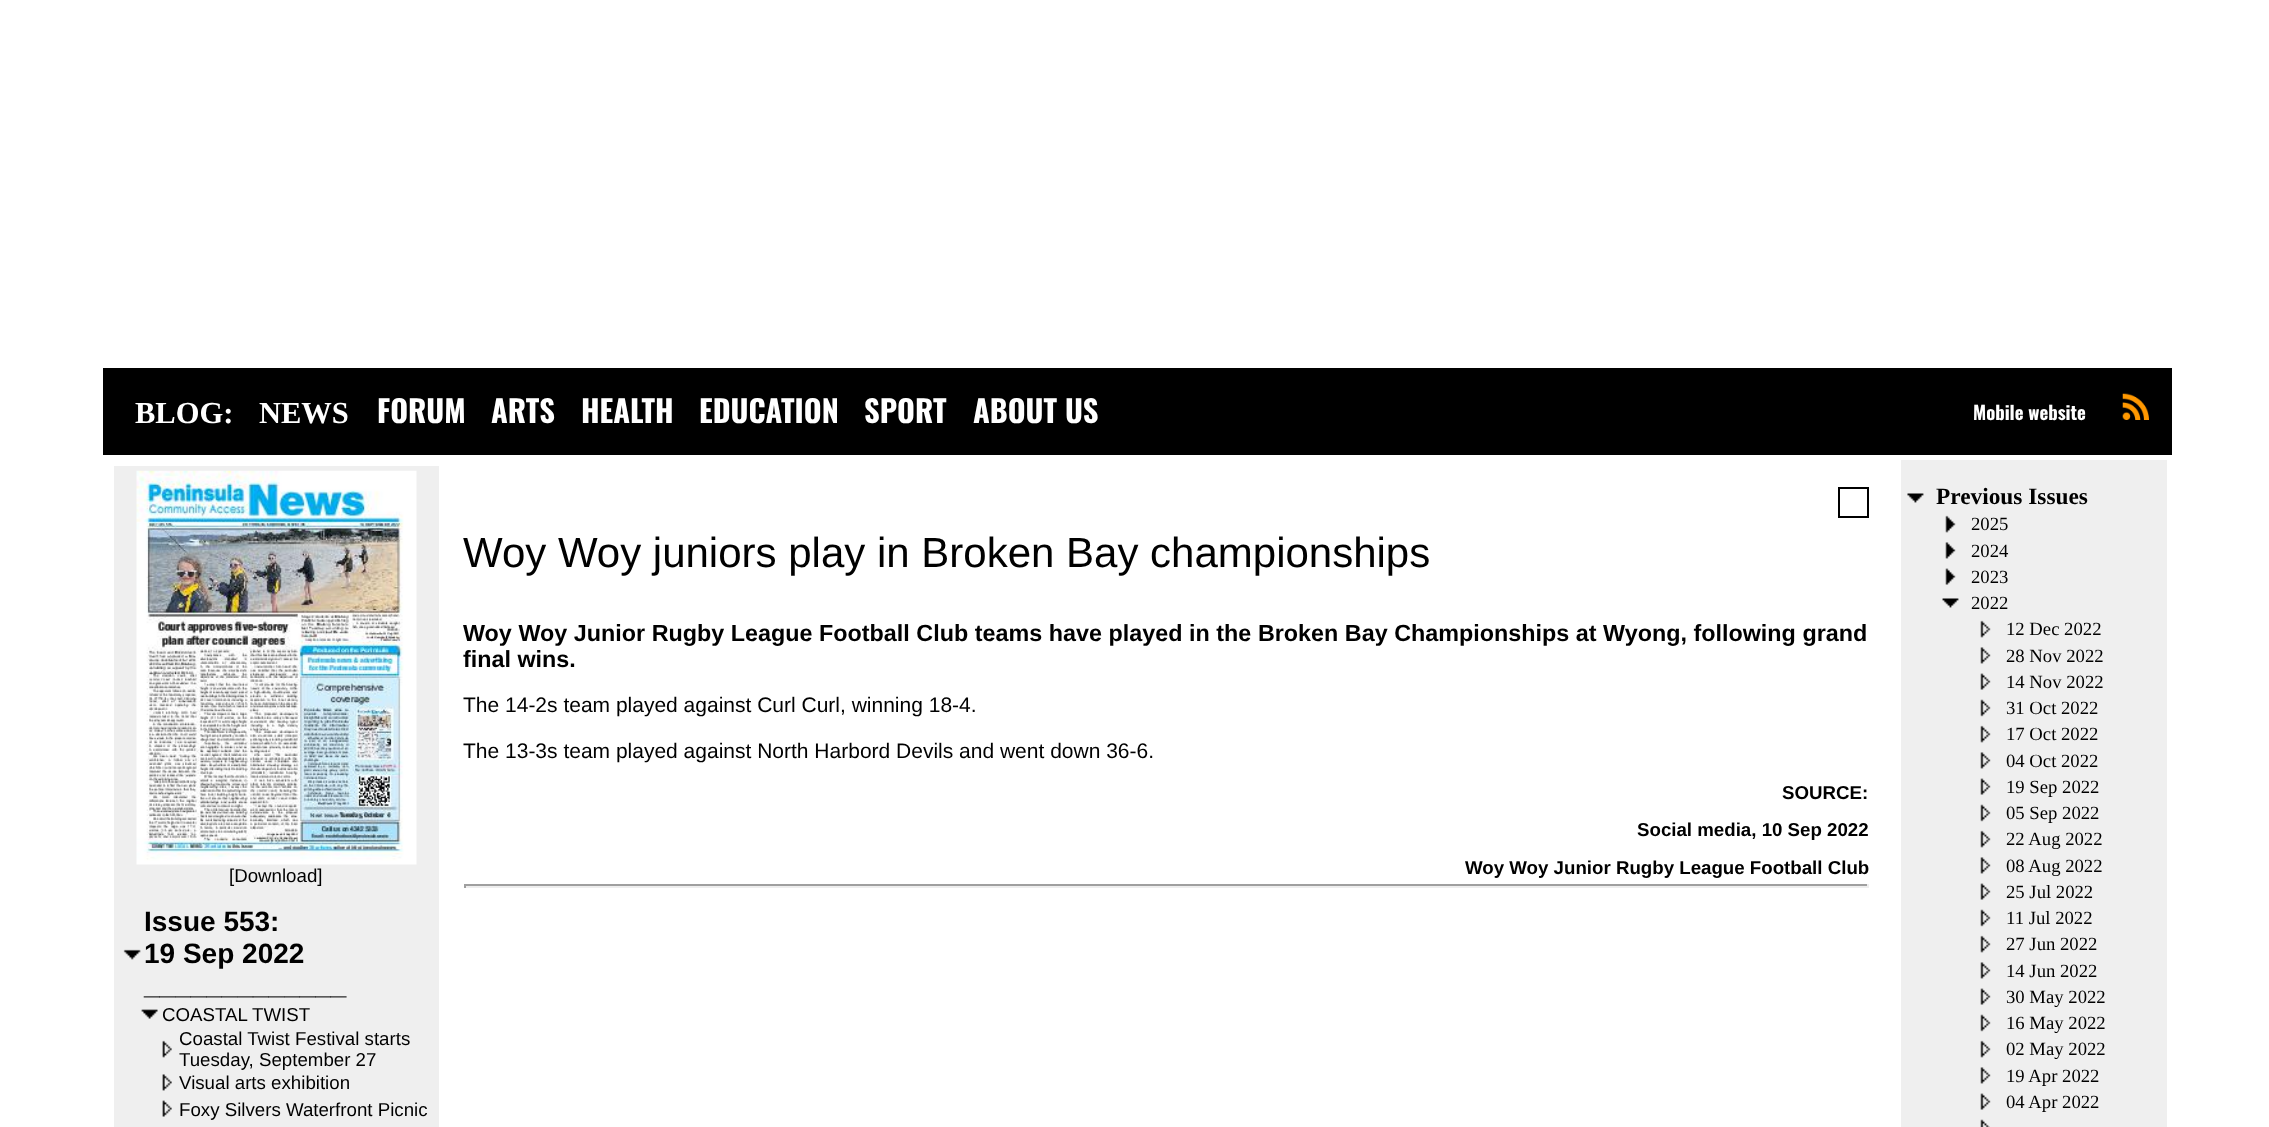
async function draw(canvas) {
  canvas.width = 2269;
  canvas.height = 1127;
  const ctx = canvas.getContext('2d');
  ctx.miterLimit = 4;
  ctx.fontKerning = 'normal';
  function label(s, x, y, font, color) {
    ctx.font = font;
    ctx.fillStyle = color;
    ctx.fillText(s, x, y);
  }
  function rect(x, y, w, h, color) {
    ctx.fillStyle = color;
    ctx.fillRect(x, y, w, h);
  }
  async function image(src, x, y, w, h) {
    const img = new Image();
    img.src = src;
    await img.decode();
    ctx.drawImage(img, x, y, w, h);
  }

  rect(0, 0, 2269, 1127, '#fff');
  rect(103, 368, 2069, 87, '#000');
  label('BLOG:', 135, 423, 'bold 30.5px Liberation Serif', '#fff');
  label('NEWS', 259, 423, 'bold 30.5px Liberation Serif', '#fff');
  label('FORUM', 377, 423, 'bold 30.5px Oswald', '#fff');
  label('ARTS', 491, 423, 'bold 30.5px Oswald', '#fff');
  label('HEALTH', 581, 423, 'bold 30.5px Oswald', '#fff');
  label('EDUCATION', 699, 423, 'bold 30.5px Oswald', '#fff');
  label('SPORT', 864, 423, 'bold 30.5px Oswald', '#fff');
  label('ABOUT US', 973, 423, 'bold 30.5px Oswald', '#fff');
  label('Mobile website', 1973, 420, 'bold 18.7px Oswald', '#fff');
  await image('assets/img1.png', 2122, 393, 27, 27);
  ctx.strokeStyle = '#000';
  ctx.lineWidth = 2;
  ctx.strokeRect(1839, 488, 29, 29);
  label('Woy Woy juniors play in Broken Bay championships', 463, 567, '42px Liberation Sans', '#000');
  ctx.wordSpacing = '0.1px';
  label('Woy Woy Junior Rugby League Football Club teams have played in the Broken Bay Championships at Wyong, following grand', 463, 641, 'bold 23.33px Liberation Sans', '#000');
  ctx.wordSpacing = '0px';
  label('final wins.', 463, 667, 'bold 23.33px Liberation Sans', '#000');
  label('The 14-2s team played against Curl Curl, winning 18-4.', 463, 712, '21px Liberation Sans', '#000');
  label('The 13-3s team played against North Harbord Devils and went down 36-6.', 463, 758, '21px Liberation Sans', '#000');
  label('SOURCE:', 1782, 799, 'bold 18.7px Liberation Sans', '#000');
  label('Social media, 10 Sep 2022', 1637, 836, 'bold 18.7px Liberation Sans', '#000');
  label('Woy Woy Junior Rugby League Football Club', 1465, 874, 'bold 18.7px Liberation Sans', '#000');
  rect(464, 884, 1405, 2, '#9f9f9f');
  rect(1867, 884, 2, 4, '#eee');
  rect(464, 886, 1405, 2, '#eee');
  rect(464, 884, 2, 4, '#9f9f9f');
  rect(114, 466, 325, 661, '#efefef');
  await image('assets/img2.png', 136, 470, 281, 395);
  label('[Download]', 229, 882, '18.7px Liberation Sans', '#000');
  await image('assets/img3.png', 123, 949, 18, 11);
  label('Issue 553:', 144, 931, 'bold 28px Liberation Sans', '#000');
  label('19 Sep 2022', 144, 963, 'bold 28px Liberation Sans', '#000');
  label('_____________', 144, 994, 'bold 28px Liberation Sans', '#000');
  await image('assets/img4.png', 141, 1009, 17, 10);
  label('COASTAL TWIST', 162, 1021, '18.7px Liberation Sans', '#000');
  await image('assets/img5.png', 162, 1040, 10, 18);
  label('Coastal Twist Festival starts', 179, 1045, '18.7px Liberation Sans', '#000');
  label('Tuesday, September 27', 179, 1066, '18.7px Liberation Sans', '#000');
  await image('assets/img6.png', 162, 1074, 10, 17);
  label('Visual arts exhibition', 179, 1089, '18.7px Liberation Sans', '#000');
  await image('assets/img7.png', 162, 1100, 10, 17);
  label('Foxy Silvers Waterfront Picnic', 179, 1116, '18.7px Liberation Sans', '#000');
  rect(1901, 460, 266, 667, '#efefef');
  await image('assets/img8.png', 1907, 493, 17, 10);
  label('Previous Issues', 1936, 504, 'bold 23.33px Liberation Serif', '#000');
  await image('assets/img9.png', 1945, 515, 11, 18);
  label('2025', 1971, 530, '18.7px Liberation Serif', '#000');
  await image('assets/img10.png', 1945, 542, 11, 17);
  label('2024', 1971, 557, '18.7px Liberation Serif', '#000');
  await image('assets/img11.png', 1945, 568, 11, 17);
  label('2023', 1971, 583, '18.7px Liberation Serif', '#000');
  await image('assets/img12.png', 1942, 598, 17, 10);
  label('2022', 1971, 609, '18.7px Liberation Serif', '#000');
  await image('assets/img13.png', 1980, 620, 11, 18);
  label('12 Dec 2022', 2006, 635, '18.7px Liberation Serif', '#000');
  await image('assets/img14.png', 1980, 647, 11, 17);
  label('28 Nov 2022', 2006, 662, '18.7px Liberation Serif', '#000');
  await image('assets/img15.png', 1980, 673, 11, 17);
  label('14 Nov 2022', 2006, 688, '18.7px Liberation Serif', '#000');
  await image('assets/img16.png', 1980, 699, 11, 18);
  label('31 Oct 2022', 2006, 714, '18.7px Liberation Serif', '#000');
  await image('assets/img13.png', 1980, 725, 11, 18);
  label('17 Oct 2022', 2006, 740, '18.7px Liberation Serif', '#000');
  await image('assets/img14.png', 1980, 752, 11, 17);
  label('04 Oct 2022', 2006, 767, '18.7px Liberation Serif', '#000');
  await image('assets/img15.png', 1980, 778, 11, 17);
  label('19 Sep 2022', 2006, 793, '18.7px Liberation Serif', '#000');
  await image('assets/img16.png', 1980, 804, 11, 18);
  label('05 Sep 2022', 2006, 819, '18.7px Liberation Serif', '#000');
  await image('assets/img13.png', 1980, 830, 11, 18);
  label('22 Aug 2022', 2006, 845, '18.7px Liberation Serif', '#000');
  await image('assets/img14.png', 1980, 857, 11, 17);
  label('08 Aug 2022', 2006, 872, '18.7px Liberation Serif', '#000');
  await image('assets/img15.png', 1980, 883, 11, 17);
  label('25 Jul 2022', 2006, 898, '18.7px Liberation Serif', '#000');
  await image('assets/img16.png', 1980, 909, 11, 18);
  label('11 Jul 2022', 2006, 924, '18.7px Liberation Serif', '#000');
  await image('assets/img13.png', 1980, 935, 11, 18);
  label('27 Jun 2022', 2006, 950, '18.7px Liberation Serif', '#000');
  await image('assets/img14.png', 1980, 962, 11, 17);
  label('14 Jun 2022', 2006, 977, '18.7px Liberation Serif', '#000');
  await image('assets/img15.png', 1980, 988, 11, 17);
  label('30 May 2022', 2006, 1003, '18.7px Liberation Serif', '#000');
  await image('assets/img16.png', 1980, 1014, 11, 18);
  label('16 May 2022', 2006, 1029, '18.7px Liberation Serif', '#000');
  await image('assets/img13.png', 1980, 1040, 11, 18);
  label('02 May 2022', 2006, 1055, '18.7px Liberation Serif', '#000');
  await image('assets/img14.png', 1980, 1067, 11, 17);
  label('19 Apr 2022', 2006, 1082, '18.7px Liberation Serif', '#000');
  await image('assets/img15.png', 1980, 1093, 11, 17);
  label('04 Apr 2022', 2006, 1108, '18.7px Liberation Serif', '#000');
  await image('assets/img17.png', 1980, 1119, 10, 8);
}

draw(document.querySelector('canvas'));
